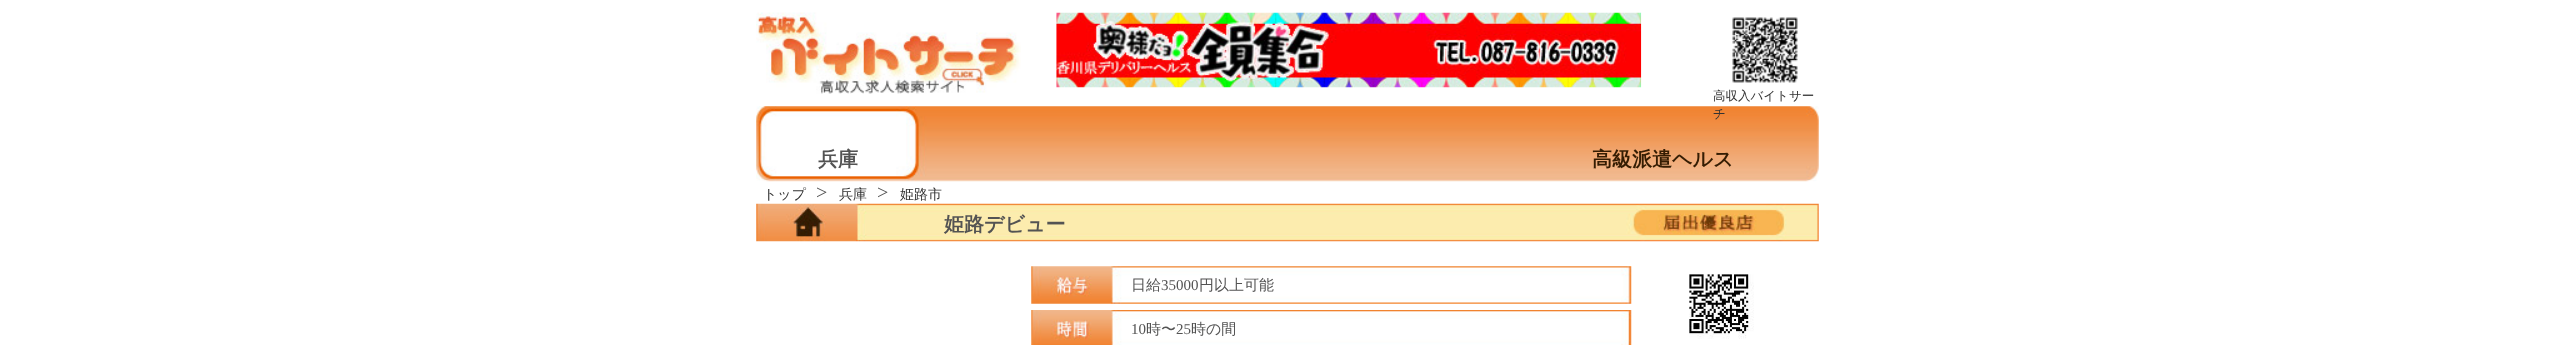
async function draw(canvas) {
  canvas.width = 2575;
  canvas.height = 345;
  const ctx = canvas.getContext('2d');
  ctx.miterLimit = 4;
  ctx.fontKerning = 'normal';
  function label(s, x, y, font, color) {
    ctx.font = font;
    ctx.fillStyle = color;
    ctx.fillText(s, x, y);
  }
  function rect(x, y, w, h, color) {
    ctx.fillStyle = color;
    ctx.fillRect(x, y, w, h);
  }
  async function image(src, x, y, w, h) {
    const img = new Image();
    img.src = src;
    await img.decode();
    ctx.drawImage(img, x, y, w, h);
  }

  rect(0, 0, 2575, 345, '#fff');
  await image('assets/img1.png', 756, 12, 265, 82);
  await image('assets/img2.png', 1056, 12, 586, 76);
  await image('assets/img3.png', 1732, 17, 66, 66);
  label('高収入バイトサー', 1713, 100, '500 12.5px WenQuanYi Zen Hei', '#333');
  await image('assets/img4.png', 756, 106, 1063, 76);
  label('チ', 1713, 118, '500 12.5px WenQuanYi Zen Hei', '#333');
  label('兵庫', 818, 166, 'bold 20px WenQuanYi Zen Hei', '#535353');
  label('高級派遣ヘルス', 1592, 166, 'bold 20px WenQuanYi Zen Hei', '#351d03');
  label('トップ', 763, 199, '500 14px WenQuanYi Zen Hei', '#333');
  label('>', 816, 199, '20px Liberation Serif', '#535353');
  label('兵庫', 839, 199, '500 14px WenQuanYi Zen Hei', '#333');
  label('>', 877, 199, '20px Liberation Serif', '#535353');
  label('姫路市', 900, 199, '500 14px WenQuanYi Zen Hei', '#333');
  await image('assets/img5.png', 756, 203, 1063, 39);
  label('姫路デビュー', 944, 231, 'bold 20px WenQuanYi Zen Hei', '#535353');
  await image('assets/img6.png', 1031, 266, 601, 38);
  label('日給', 1131, 290, '500 15px WenQuanYi Zen Hei', '#535353');
  label('35000', 1161, 290, '15px Liberation Serif', '#535353');
  label('円以上可能', 1199, 290, '500 15px WenQuanYi Zen Hei', '#535353');
  await image('assets/img7.png', 1031, 310, 601, 35);
  label('10', 1131, 334, '15px Liberation Serif', '#535353');
  label('時〜', 1146, 334, '500 15px WenQuanYi Zen Hei', '#535353');
  label('25', 1176, 334, '15px Liberation Serif', '#535353');
  label('時の間', 1191, 334, '500 15px WenQuanYi Zen Hei', '#535353');
  await image('assets/img8.png', 1689, 274, 65, 65);
}

draw(document.querySelector('canvas'));
